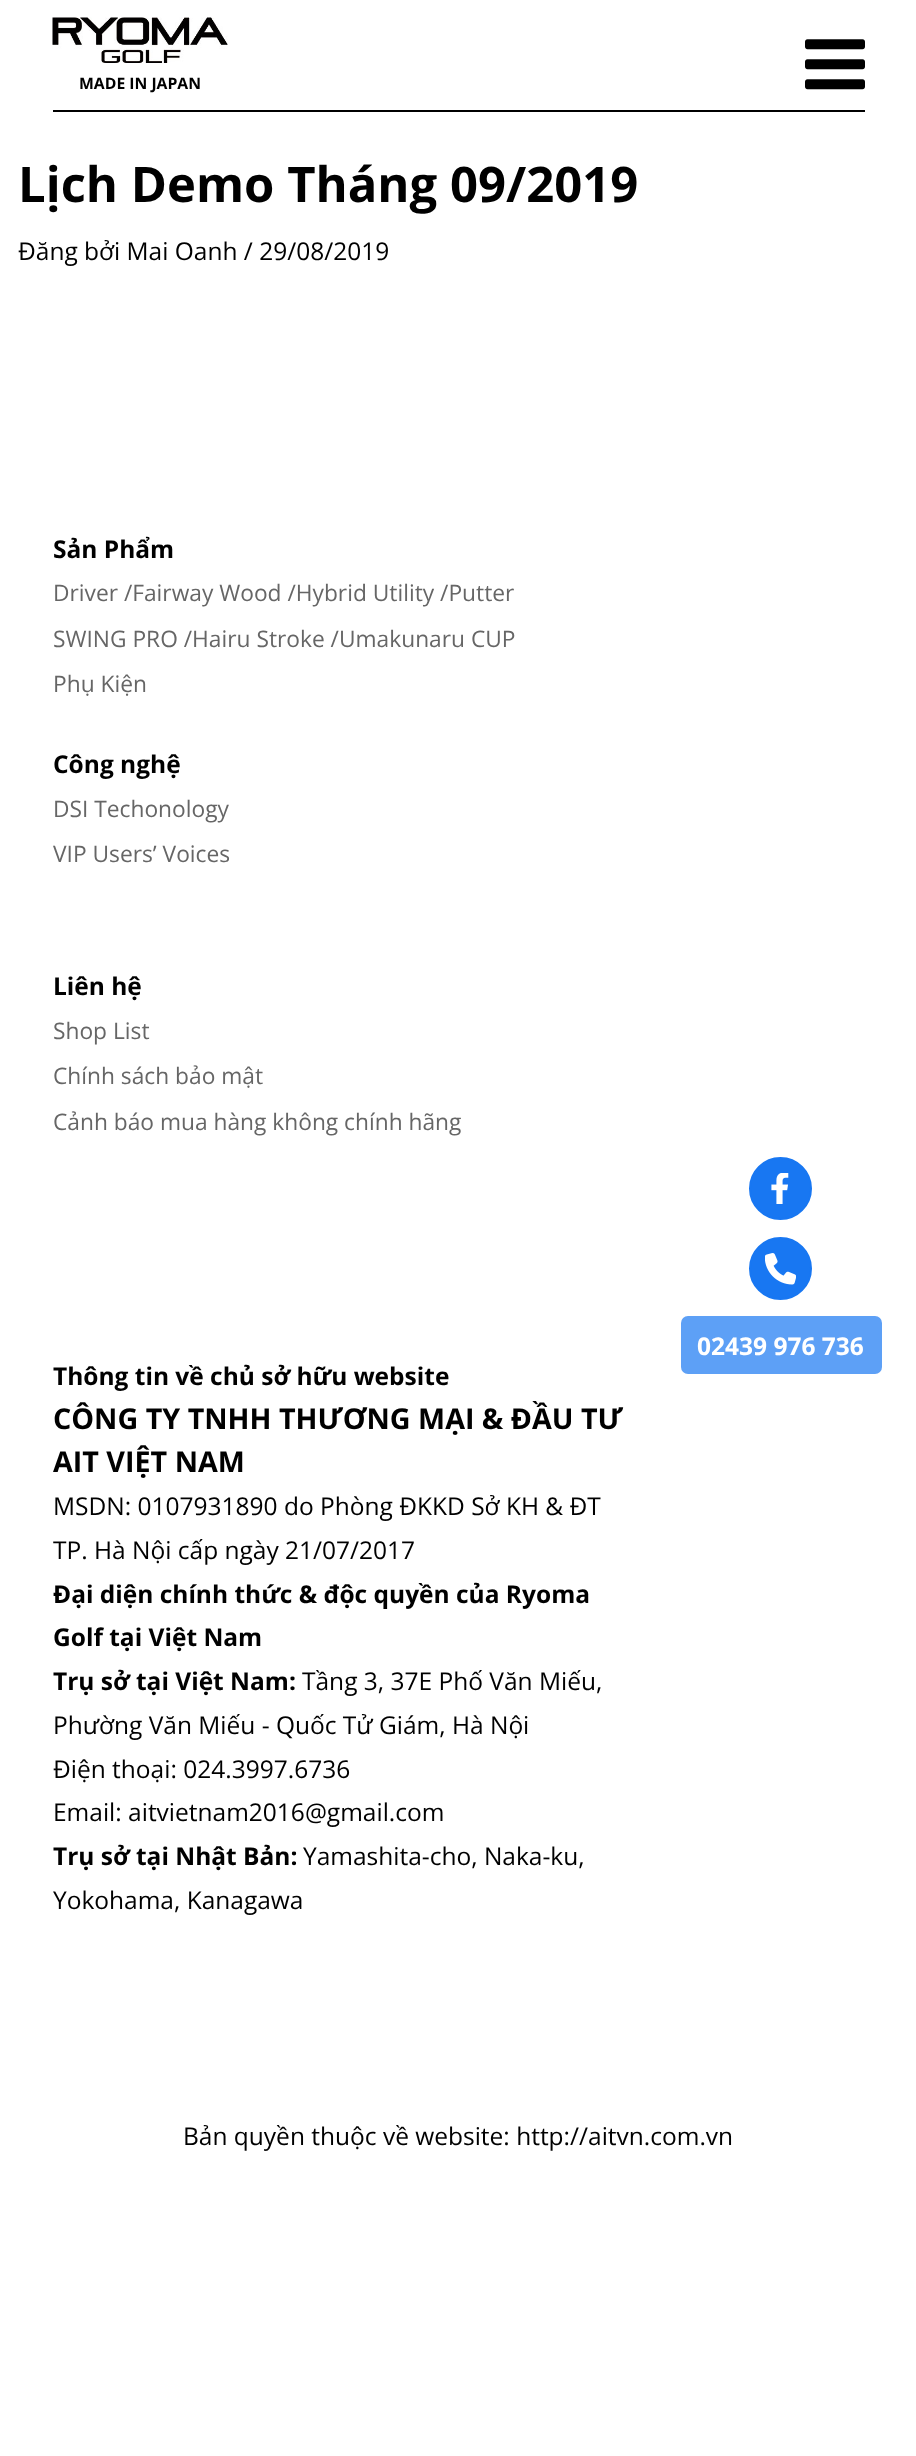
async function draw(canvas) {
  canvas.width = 916;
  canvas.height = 2456;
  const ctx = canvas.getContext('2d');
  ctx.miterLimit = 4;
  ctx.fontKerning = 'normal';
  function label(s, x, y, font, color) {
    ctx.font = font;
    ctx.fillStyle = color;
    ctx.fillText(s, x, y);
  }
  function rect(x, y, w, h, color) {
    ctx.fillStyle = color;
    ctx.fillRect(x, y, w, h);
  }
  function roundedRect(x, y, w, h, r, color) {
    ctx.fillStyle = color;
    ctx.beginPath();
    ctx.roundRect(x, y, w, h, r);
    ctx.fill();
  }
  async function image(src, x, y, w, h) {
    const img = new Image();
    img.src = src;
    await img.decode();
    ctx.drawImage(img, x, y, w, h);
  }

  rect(0, 0, 916, 2456, '#fff');
  rect(53, 110, 812, 2, '#000');
  await image('assets/img1.png', 52, 17, 176, 46);
  label('MADE IN JAPAN', 79, 89, 'bold 15.75px Open Sans', '#000');
  await image('assets/img2.png', 805, 39, 60, 51);
  label('Lịch Demo Tháng 09/2019', 18, 202, 'bold 49px Open Sans', '#000');
  label('Đăng bởi Mai Oanh / 29/08/2019', 18, 260, '24.5px Open Sans', '#000');
  label('Sản Phẩm', 53, 558, 'bold 24.5px Open Sans', '#000');
  label('Driver /Fairway Wood /Hybrid Utility /Putter', 53, 601, '22.75px Open Sans', '#666');
  label('SWING PRO /Hairu Stroke /Umakunaru CUP', 53, 647, '22.75px Open Sans', '#666');
  label('Phụ Kiện', 53, 692, '22.75px Open Sans', '#666');
  label('Công nghệ', 53, 773, 'bold 24.5px Open Sans', '#000');
  label('DSI Techonology', 53, 817, '22.75px Open Sans', '#666');
  label('VIP Users’ Voices', 53, 862, '22.75px Open Sans', '#666');
  label('Liên hệ', 53, 995, 'bold 24.5px Open Sans', '#000');
  label('Shop List', 53, 1039, '22.75px Open Sans', '#666');
  label('Chính sách bảo mật', 53, 1084, '22.75px Open Sans', '#666');
  label('Cảnh báo mua hàng không chính hãng', 53, 1130, '22.75px Open Sans', '#666');
  label('Thông tin về chủ sở hữu website', 53, 1385, 'bold 24.5px Open Sans', '#000');
  label('CÔNG TY TNHH THƯƠNG MẠI & ĐẦU TƯ', 53, 1429, 'bold 28.7px Open Sans', '#000');
  label('AIT VIỆT NAM', 53, 1472, 'bold 28.7px Open Sans', '#000');
  label('MSDN: 0107931890 do Phòng ĐKKD Sở KH & ĐT', 53, 1515, '24.5px Open Sans', '#000');
  label('TP. Hà Nội cấp ngày 21/07/2017', 53, 1559, '24.5px Open Sans', '#000');
  label('Đại diện chính thức & độc quyền của Ryoma', 53, 1603, 'bold 24.5px Open Sans', '#000');
  label('Golf tại Việt Nam', 53, 1646, 'bold 24.5px Open Sans', '#000');
  label('Trụ sở tại Việt Nam:', 53, 1690, 'bold 24.5px Open Sans', '#000');
  label('Tầng 3, 37E Phố Văn Miếu,', 302, 1690, '24.5px Open Sans', '#000');
  label('Phường Văn Miếu - Quốc Tử Giám, Hà Nội', 53, 1734, '24.5px Open Sans', '#000');
  label('Điện thoại: 024.3997.6736', 53, 1778, '24.5px Open Sans', '#000');
  label('Email: aitvietnam2016@gmail.com', 53, 1821, '24.5px Open Sans', '#000');
  label('Trụ sở tại Nhật Bản:', 53, 1865, 'bold 24.5px Open Sans', '#000');
  label('Yamashita-cho, Naka-ku,', 303, 1865, '24.5px Open Sans', '#000');
  label('Yokohama, Kanagawa', 53, 1909, '24.5px Open Sans', '#000');
  label('Bản quyền thuộc về website: http://aitvn.com.vn', 183, 2145, '24.5px Open Sans', '#000');
  ctx.fillStyle = '#1877f2';
  ctx.beginPath();
  ctx.arc(780.5, 1188.5, 30.5, 0, 2 * Math.PI);
  ctx.fill();
  ctx.strokeStyle = '#1877f2';
  ctx.lineWidth = 2;
  ctx.stroke();
  await image('assets/img3.png', 771, 1173, 18, 31);
  ctx.beginPath();
  ctx.arc(780.5, 1268.5, 30.5, 0, 2 * Math.PI);
  ctx.fill();
  ctx.stroke();
  await image('assets/img4.png', 765, 1253, 31, 32);
  roundedRect(681, 1316, 201, 58, 7, '#5da0f6');
  label('02439 976 736', 697, 1355, 'bold 24.5px Open Sans', '#fff');
}

draw(document.querySelector('canvas'));
